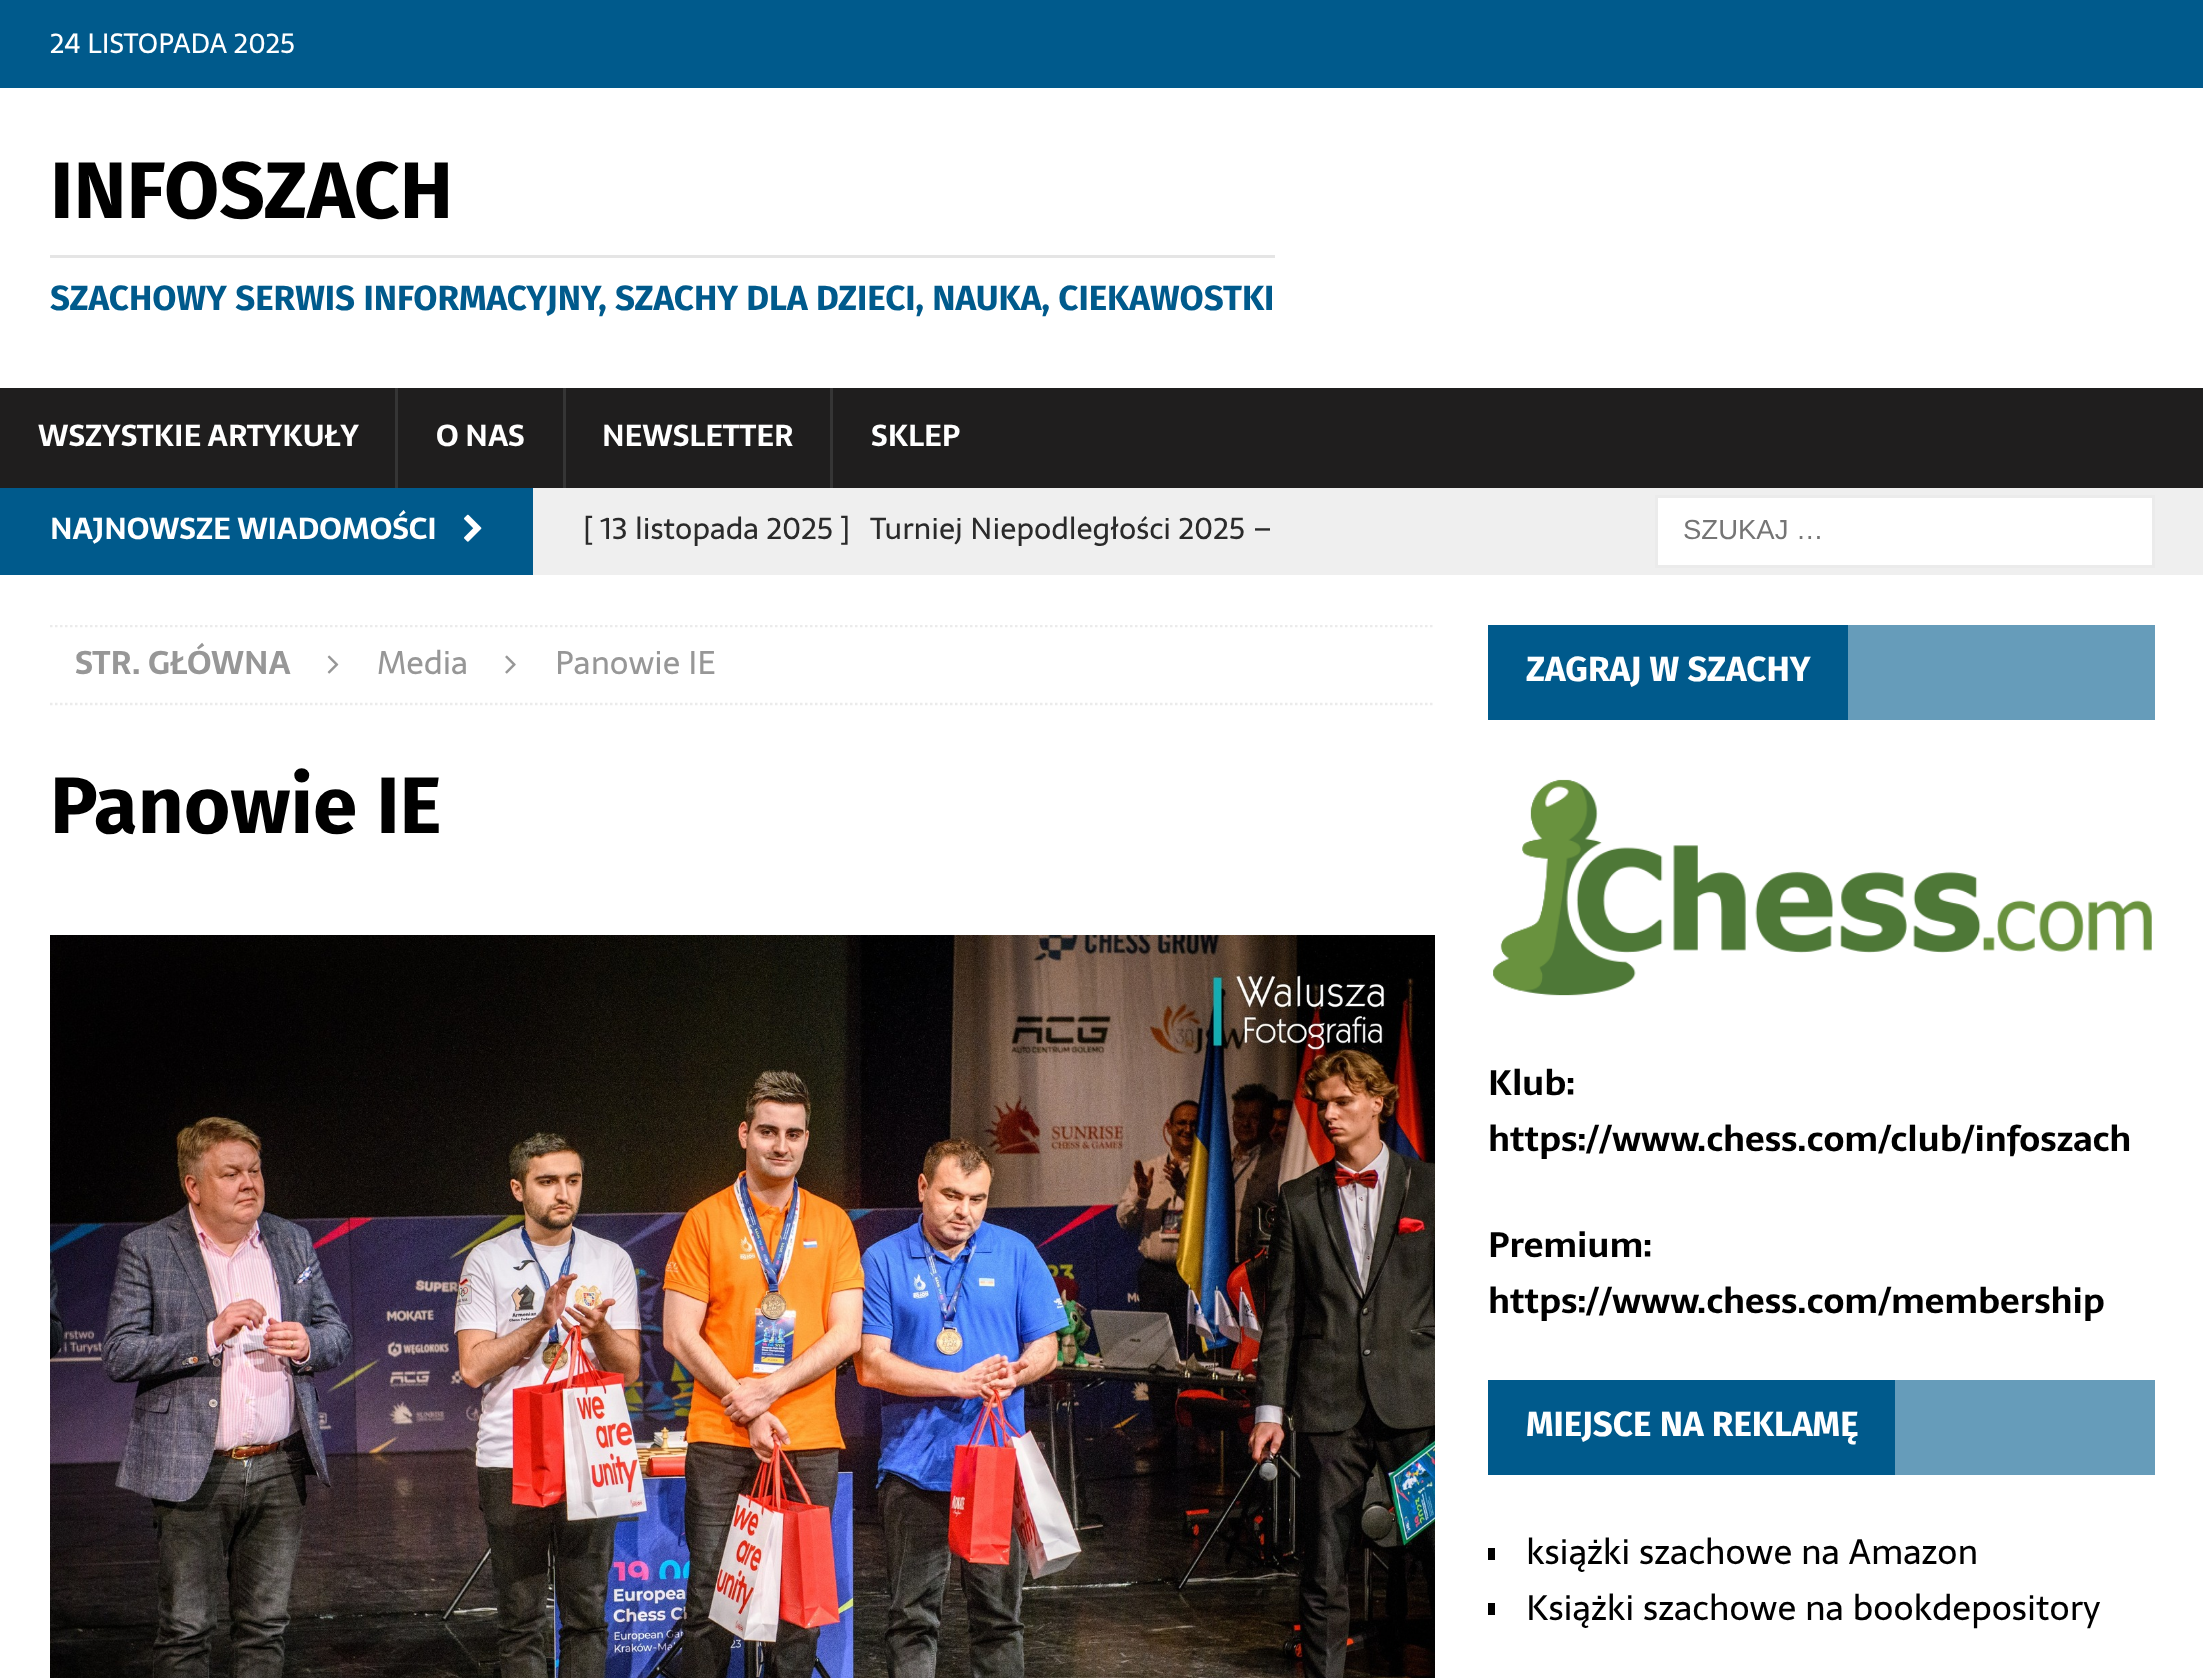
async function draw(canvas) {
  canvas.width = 2203;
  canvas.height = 1678;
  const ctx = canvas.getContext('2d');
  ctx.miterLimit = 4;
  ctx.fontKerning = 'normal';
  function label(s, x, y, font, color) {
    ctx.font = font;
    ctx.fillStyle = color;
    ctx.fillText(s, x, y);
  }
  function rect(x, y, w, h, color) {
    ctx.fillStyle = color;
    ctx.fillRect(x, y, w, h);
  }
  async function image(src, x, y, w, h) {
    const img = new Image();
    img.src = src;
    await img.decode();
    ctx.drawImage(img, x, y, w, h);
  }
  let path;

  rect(0, 0, 2203, 1678, '#efefef');
  rect(0, 0, 2203, 88, '#005a8c');
  label('24 LISTOPADA 2025', 50, 53, '27.5px Sarala', '#fff');
  rect(0, 88, 2203, 300, '#fff');
  label('INFOSZACH', 50, 218, 'bold 80px Fira Sans', '#000');
  rect(50, 255, 1225, 3, '#e5e5e5');
  label('SZACHOWY SERWIS INFORMACYJNY, SZACHY DLA DZIECI, NAUKA, CIEKAWOSTKI', 50, 310, 'bold 35px Fira Sans', '#005a8c');
  rect(0, 388, 2203, 100, '#1f1e1e');
  label('WSZYSTKIE ARTYKUŁY', 38, 446, 'bold 30px Sarala', '#fff');
  rect(395, 388, 3, 100, '#353535');
  label('O NAS', 436, 446, 'bold 30px Sarala', '#fff');
  rect(563, 388, 3, 100, '#353535');
  label('NEWSLETTER', 602, 446, 'bold 30px Sarala', '#fff');
  rect(830, 388, 3, 100, '#353535');
  label('SKLEP', 871, 446, 'bold 30px Sarala', '#fff');
  rect(0, 488, 533, 87, '#005a8c');
  label('NAJNOWSZE WIADOMOŚCI', 50, 539, 'bold 30px Sarala', '#fff');
  await image('assets/img1.png', 464, 514, 18, 28);
  label('[ 13 listopada 2025 ]', 583, 539, '30px Sarala', '#2a2a2a');
  label('Turniej Niepodległości 2025 –', 870, 539, '30px Sarala', '#2a2a2a');
  ctx.fillStyle = '#fff';
  ctx.beginPath();
  ctx.rect(1656.5, 496.5, 497, 70);
  ctx.fill();
  ctx.strokeStyle = '#ebebeb';
  ctx.lineWidth = 3;
  ctx.stroke();
  label('SZUKAJ …', 1683, 539, '27.5px Liberation Sans', '#757575');
  rect(0, 575, 2203, 1103, '#fff');
  ctx.save();
  ctx.beginPath();
  ctx.rect(50, 625, 1385, 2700);
  ctx.clip();
  path = new Path2D('M50 626H1435');
  ctx.lineWidth = 2.5;
  ctx.setLineDash([2.5, 2.5]);
  ctx.stroke(path);
  ctx.restore();
  path = new Path2D('M50 704H1435');
  ctx.lineWidth = 2.5;
  ctx.setLineDash([2.5, 2.5]);
  ctx.stroke(path);
  label('STR. GŁÓWNA', 75, 674, 'bold 32.5px Sarala', '#979797');
  await image('assets/img2.png', 327, 655, 12, 19);
  label('Media', 377, 674, '32.5px Sarala', '#979797');
  await image('assets/img3.png', 505, 655, 11, 19);
  label('Panowie IE', 555, 674, '32.5px Sarala', '#979797');
  label('Panowie IE', 50, 833, 'bold 80px Fira Sans', '#000');
  await image('assets/img4.png', 50, 935, 1385, 743);
  rect(1848, 625, 307, 95, '#669cba');
  rect(1488, 625, 360, 95, '#005a8c');
  label('ZAGRAJ W SZACHY', 1526, 681, 'bold 35px Fira Sans', '#fff');
  await image('assets/img5.png', 1493, 779, 659, 217);
  label('Klub:', 1488, 1095, 'bold 35px Sarala', '#000');
  label('https://www.chess.com/club/infoszach', 1488, 1151, 'bold 35px Sarala', '#000');
  label('Premium:', 1488, 1257, 'bold 35px Sarala', '#000');
  label('https://www.chess.com/membership', 1488, 1313, 'bold 35px Sarala', '#000');
  rect(1895, 1380, 260, 95, '#669cba');
  rect(1488, 1380, 407, 95, '#005a8c');
  label('MIEJSCE NA REKLAMĘ', 1526, 1436, 'bold 35px Fira Sans', '#fff');
  rect(1488, 1548, 7, 12, '#000');
  label('książki szachowe na Amazon', 1526, 1564, '35px Sarala', '#000');
  rect(1488, 1603, 7, 12, '#000');
  label('Książki szachowe na bookdepository', 1526, 1620, '35px Sarala', '#000');
}

draw(document.querySelector('canvas'));
